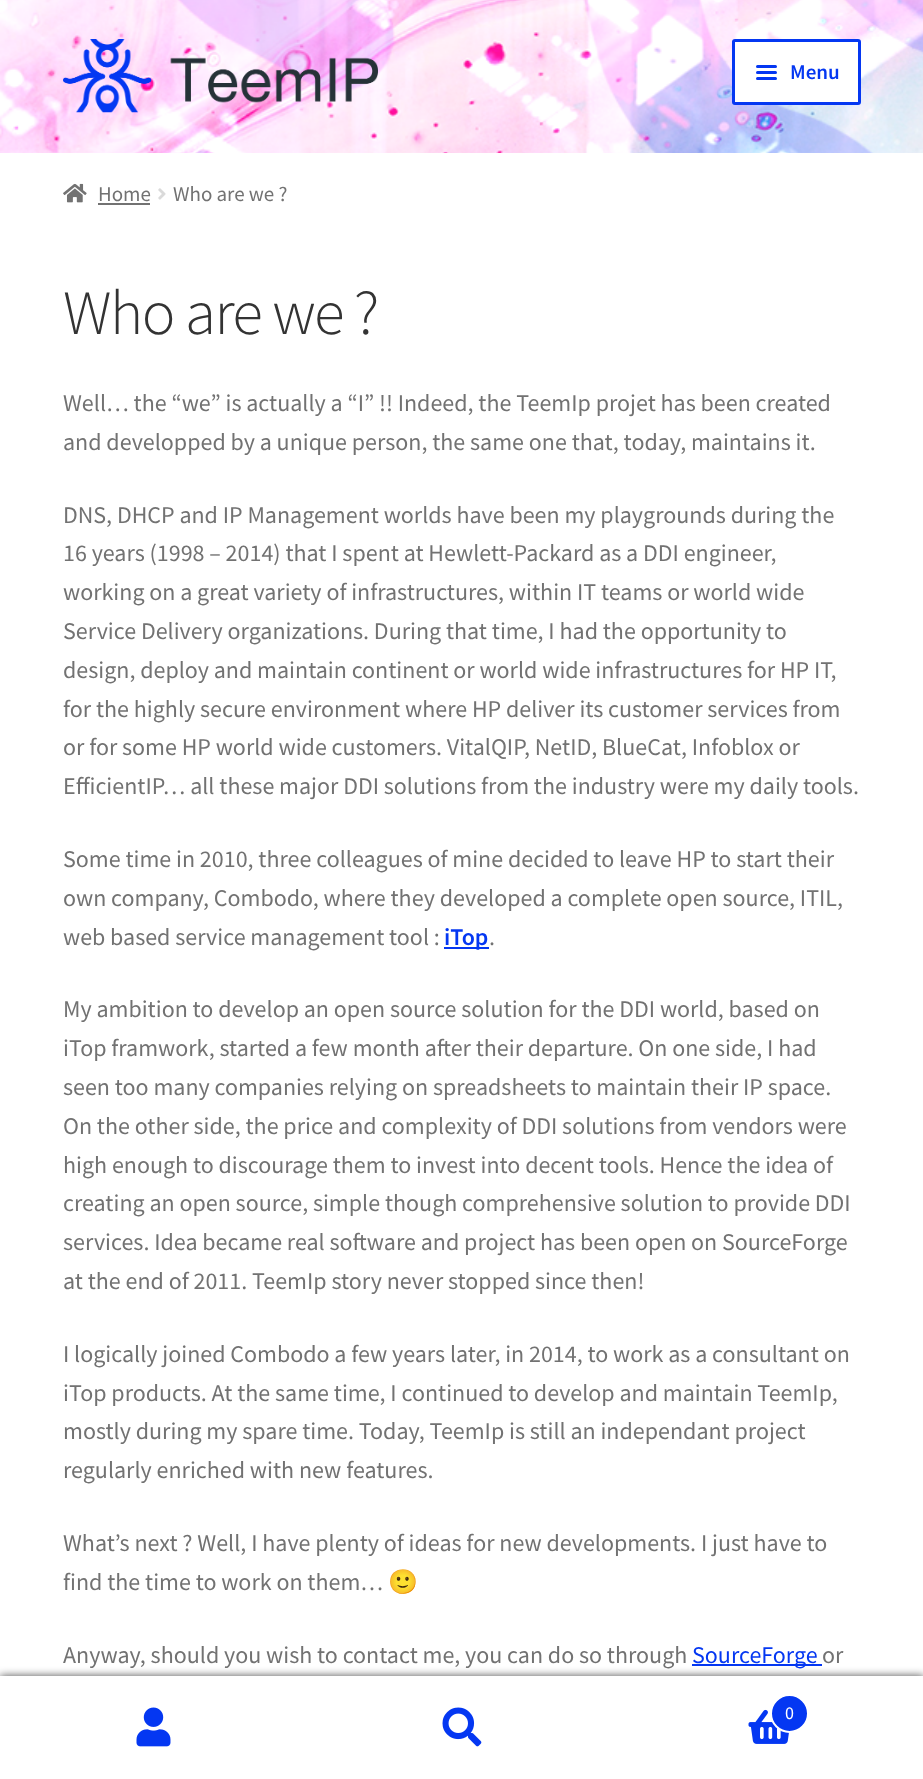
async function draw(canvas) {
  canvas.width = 923;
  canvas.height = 1779;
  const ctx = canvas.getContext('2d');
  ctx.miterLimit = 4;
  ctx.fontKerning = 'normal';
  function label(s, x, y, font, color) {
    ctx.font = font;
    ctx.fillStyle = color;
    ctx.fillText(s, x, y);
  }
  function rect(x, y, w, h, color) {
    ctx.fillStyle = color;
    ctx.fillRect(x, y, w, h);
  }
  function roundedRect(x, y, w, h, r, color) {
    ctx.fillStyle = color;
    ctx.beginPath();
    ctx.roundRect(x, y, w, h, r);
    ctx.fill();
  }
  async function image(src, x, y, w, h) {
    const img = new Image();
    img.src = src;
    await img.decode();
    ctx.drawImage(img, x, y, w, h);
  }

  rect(0, 0, 923, 1779, '#fff');
  await image('assets/img1.png', 0, 0, 923, 153);
  await image('assets/img2.png', 63, 39, 315, 74);
  ctx.beginPath();
  ctx.roundRect(733.5, 40.5, 126, 63, 1.5);
  ctx.fill();
  ctx.strokeStyle = '#0437f2';
  ctx.lineWidth = 3;
  ctx.stroke();
  roundedRect(756, 65, 21, 3, 1.5, '#0437f2');
  roundedRect(756, 71, 21, 3, 1.5, '#0437f2');
  label('Menu', 790, 79, '600 21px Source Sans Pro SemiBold', '#0437f2');
  roundedRect(756, 77, 21, 3, 1.5, '#0437f2');
  await image('assets/img3.png', 63, 183, 24, 20);
  label('Home', 98, 201, '21px Source Sans Pro', '#727272');
  rect(98, 203, 52, 2, '#727272');
  await image('assets/img4.png', 158, 188, 8, 12);
  label('Who are we ?', 173, 201, '21px Source Sans Pro', '#727272');
  ctx.letterSpacing = '-1.5px';
  label('Who are we ?', 63, 334, '300 63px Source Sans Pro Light', '#333');
  ctx.letterSpacing = '0px';
  label('Well… the “we” is actually a “I” !! Indeed, the TeemIp projet has been created', 63, 411, '24px Source Sans Pro', '#727272');
  label('and developped by a unique person, the same one that, today, maintains it.', 63, 450, '24px Source Sans Pro', '#727272');
  label('DNS, DHCP and IP Management worlds have been my playgrounds during the', 63, 523, '24px Source Sans Pro', '#727272');
  label('16 years (1998 – 2014) that I spent at Hewlett-Packard as a DDI engineer,', 63, 561, '24px Source Sans Pro', '#727272');
  label('working on a great variety of infrastructures, within IT teams or world wide', 63, 600, '24px Source Sans Pro', '#727272');
  label('Service Delivery organizations. During that time, I had the opportunity to', 63, 639, '24px Source Sans Pro', '#727272');
  label('design, deploy and maintain continent or world wide infrastructures for HP IT,', 63, 678, '24px Source Sans Pro', '#727272');
  label('for the highly secure environment where HP deliver its customer services from', 63, 717, '24px Source Sans Pro', '#727272');
  label('or for some HP world wide customers. VitalQIP, NetID, BlueCat, Infoblox or', 63, 755, '24px Source Sans Pro', '#727272');
  label('EfficientIP… all these major DDI solutions from the industry were my daily tools.', 63, 794, '24px Source Sans Pro', '#727272');
  label('Some time in 2010, three colleagues of mine decided to leave HP to start their', 63, 867, '24px Source Sans Pro', '#727272');
  label('own company, Combodo, where they developed a complete open source, ITIL,', 63, 906, '24px Source Sans Pro', '#727272');
  label('web based service management tool :', 63, 945, '24px Source Sans Pro', '#727272');
  rect(444, 947, 45, 2, '#0437f2');
  label('iTop', 444, 945, '600 24px Source Sans Pro SemiBold', '#0437f2');
  label('.', 489, 945, '24px Source Sans Pro', '#727272');
  label('My ambition to develop an open source solution for the DDI world, based on', 63, 1017, '24px Source Sans Pro', '#727272');
  label('iTop framwork, started a few month after their departure. On one side, I had', 63, 1056, '24px Source Sans Pro', '#727272');
  label('seen too many companies relying on spreadsheets to maintain their IP space.', 63, 1095, '24px Source Sans Pro', '#727272');
  label('On the other side, the price and complexity of DDI solutions from vendors were', 63, 1134, '24px Source Sans Pro', '#727272');
  label('high enough to discourage them to invest into decent tools. Hence the idea of', 63, 1173, '24px Source Sans Pro', '#727272');
  label('creating an open source, simple though comprehensive solution to provide DDI', 63, 1211, '24px Source Sans Pro', '#727272');
  label('services. Idea became real software and project has been open on SourceForge', 63, 1250, '24px Source Sans Pro', '#727272');
  label('at the end of 2011. TeemIp story never stopped since then!', 63, 1289, '24px Source Sans Pro', '#727272');
  label('I logically joined Combodo a few years later, in 2014, to work as a consultant on', 63, 1362, '24px Source Sans Pro', '#727272');
  label('iTop products. At the same time, I continued to develop and maintain TeemIp,', 63, 1401, '24px Source Sans Pro', '#727272');
  label('mostly during my spare time. Today, TeemIp is still an independant project', 63, 1439, '24px Source Sans Pro', '#727272');
  label('regularly enriched with new features.', 63, 1478, '24px Source Sans Pro', '#727272');
  label('What’s next ? Well, I have plenty of ideas for new developments. I just have to', 63, 1551, '24px Source Sans Pro', '#727272');
  label('find the time to work on them…', 63, 1590, '24px Source Sans Pro', '#727272');
  label('🙂', 388, 1590, '24px Noto Color Emoji', '#727272');
  label('Anyway, should you wish to contact me, you can do so through', 63, 1663, '24px Source Sans Pro', '#727272');
  rect(692, 1664, 130, 2, '#0437f2');
  label('SourceForge', 692, 1663, '24px Source Sans Pro', '#0437f2');
  label('or', 822, 1663, '24px Source Sans Pro', '#727272');
  ctx.fillStyle = '#000000b3';
  ctx.filter = 'blur(4.5px)';
  ctx.beginPath();
  ctx.rect(0, 1676, 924, 103);
  ctx.fill();
  ctx.filter = 'none';
  rect(0, 1676, 923, 1, '#fff');
  rect(0, 1677, 923, 102, '#fff');
  await image('assets/img5.png', 136, 1707, 35, 40);
  await image('assets/img6.png', 442, 1707, 40, 40);
  await image('assets/img7.png', 748, 1709, 41, 35);
  ctx.fillStyle = '#0437f2';
  ctx.beginPath();
  ctx.arc(789.5, 1713.5, 18.5, 0, 2 * Math.PI);
  ctx.fill();
  ctx.strokeStyle = '#fff';
  ctx.lineWidth = 2;
  ctx.stroke();
  label('0', 785, 1719, '18px Source Sans Pro', '#fff');
}

draw(document.querySelector('canvas'));
